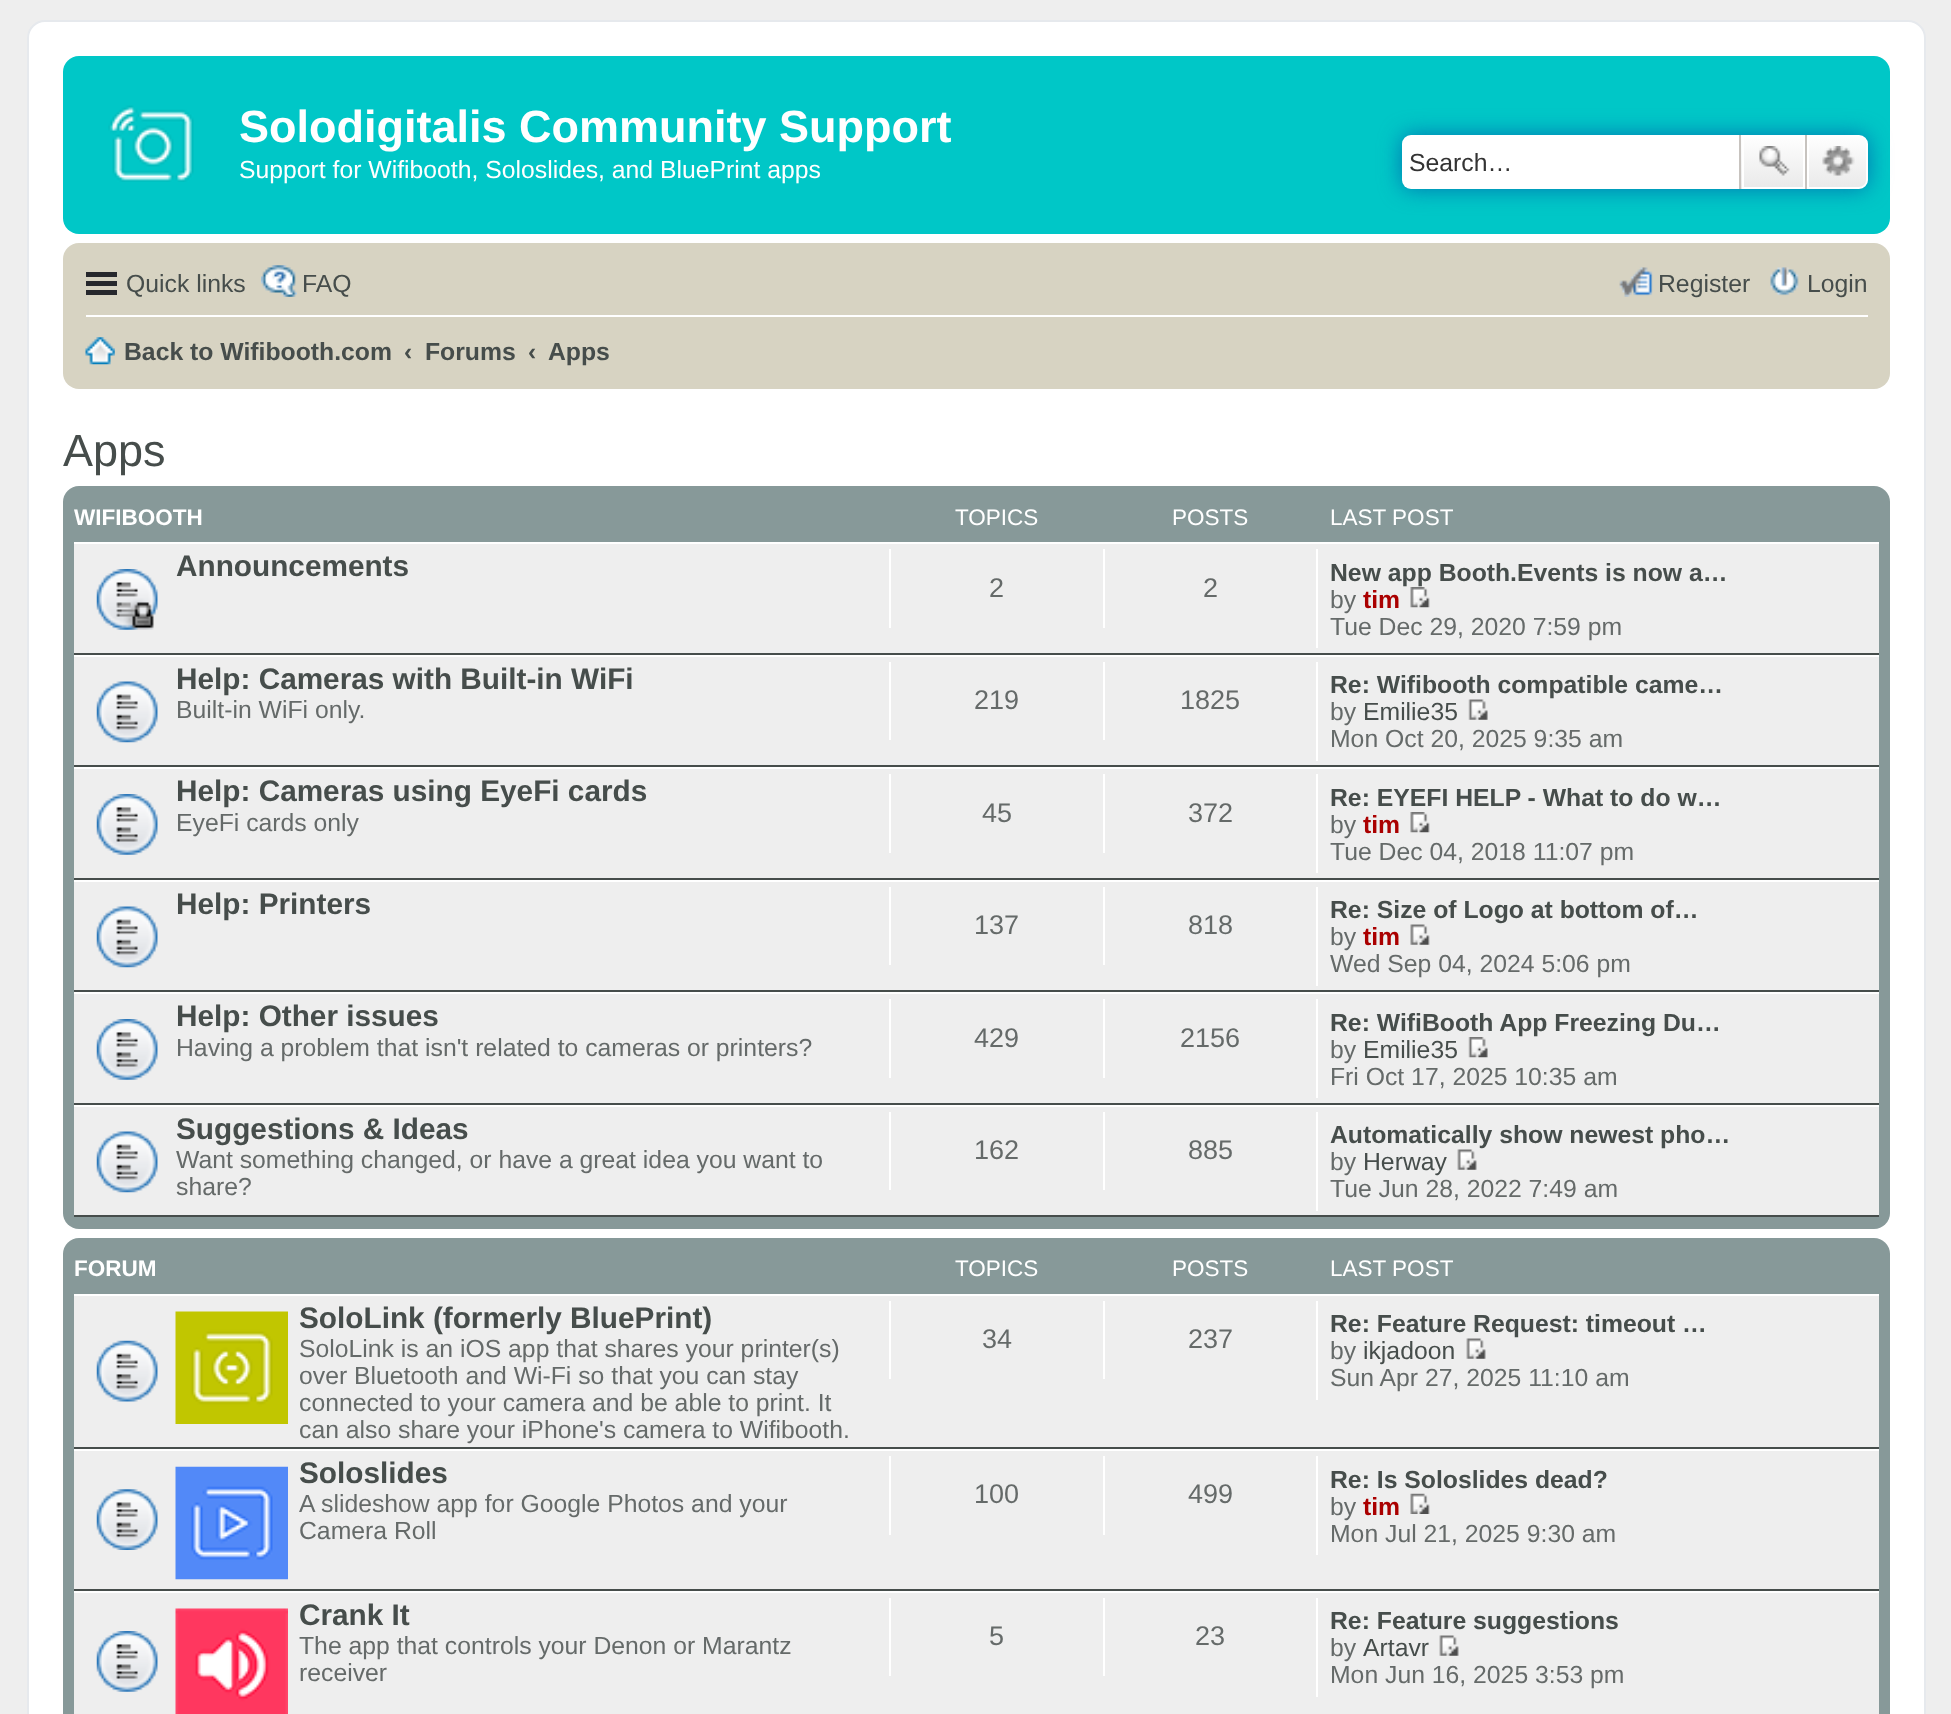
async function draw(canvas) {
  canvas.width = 1951;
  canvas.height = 1714;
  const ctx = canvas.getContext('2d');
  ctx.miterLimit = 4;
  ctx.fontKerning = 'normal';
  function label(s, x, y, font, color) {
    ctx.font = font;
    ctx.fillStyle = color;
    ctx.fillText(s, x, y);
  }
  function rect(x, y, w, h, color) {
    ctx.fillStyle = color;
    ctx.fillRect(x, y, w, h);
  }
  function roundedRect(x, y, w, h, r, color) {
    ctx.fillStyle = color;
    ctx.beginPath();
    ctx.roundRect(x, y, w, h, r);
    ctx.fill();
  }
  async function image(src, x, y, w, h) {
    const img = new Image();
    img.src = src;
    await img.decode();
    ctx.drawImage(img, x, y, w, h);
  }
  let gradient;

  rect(0, 0, 1951, 1714, '#eee');
  ctx.fillStyle = '#fff';
  ctx.beginPath();
  ctx.roundRect(28, 21, 1897, 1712, 17);
  ctx.fill();
  ctx.strokeStyle = '#e6e9ed';
  ctx.lineWidth = 2;
  ctx.stroke();
  roundedRect(63, 56, 1827, 178, 16, '#00c7c7');
  await image('assets/img1.png', 108, 105, 86, 77);
  label('Solodigitalis Community Support', 239, 142, 'bold 45px Liberation Sans', '#fff');
  label('Support for Wifibooth, Soloslides, and BluePrint apps', 239, 178, '24.75px Liberation Sans', '#fff');
  ctx.fillStyle = '#0075b0';
  ctx.filter = 'blur(11px)';
  ctx.beginPath();
  ctx.roundRect(1402, 135, 466, 54, 9);
  ctx.fill();
  ctx.filter = 'none';
  ctx.fillStyle = '#fff';
  ctx.beginPath();
  ctx.roundRect(1402, 135, 337, 54, [9, 0, 0, 9]);
  ctx.fill();
  label('Search…', 1409, 171, '24.75px Liberation Sans', '#333');
  gradient = ctx.createLinearGradient(1773, 135, 1773, 189);
  gradient.addColorStop(0, '#fff');
  gradient.addColorStop(1, '#e9e9e9');
  ctx.fillStyle = gradient;
  ctx.fillRect(1741, 135, 62, 54);
  ctx.strokeStyle = '#fff';
  ctx.strokeRect(1743, 136, 61, 52);
  rect(1805, 135, 2, 54, '#c7c3bf');
  rect(1739, 135, 2, 54, '#c7c3bf');
  await image('assets/img2.png', 1759, 146, 31, 30);
  gradient = ctx.createLinearGradient(1837, 135, 1837, 189);
  gradient.addColorStop(0, '#fff');
  gradient.addColorStop(1, '#e9e9e9');
  ctx.fillStyle = gradient;
  ctx.beginPath();
  ctx.roundRect(1808, 136, 59, 52, [0, 8, 8, 0]);
  ctx.fill();
  ctx.stroke();
  await image('assets/img3.png', 1822, 146, 33, 30);
  roundedRect(63, 243, 1827, 146, 16, '#d7d3c2');
  rect(86, 272, 31, 5, '#27282d');
  rect(86, 281, 31, 5, '#27282d');
  rect(86, 290, 31, 5, '#27282d');
  label('Quick links', 126, 292, '24.75px Liberation Sans', '#464d4b');
  await image('assets/img4.png', 261, 265, 36, 32);
  label('FAQ', 302, 292, '24.75px Liberation Sans', '#464d4b');
  await image('assets/img5.png', 1619, 267, 34, 30);
  label('Register', 1658, 292, '24.75px Liberation Sans', '#464d4b');
  await image('assets/img6.png', 1770, 267, 29, 29);
  label('Login', 1807, 292, '24.75px Liberation Sans', '#464d4b');
  rect(86, 315, 1782, 2, '#fff');
  await image('assets/img7.png', 85, 337, 30, 28);
  label('Back to Wifibooth.com', 124, 360, 'bold 24.75px Liberation Sans', '#464d4b');
  label('‹', 404, 360, 'bold 24.75px Liberation Sans', '#464d4b');
  label('Forums', 425, 360, 'bold 24.75px Liberation Sans', '#464d4b');
  label('‹', 528, 360, 'bold 24.75px Liberation Sans', '#464d4b');
  label('Apps', 548, 360, 'bold 24.75px Liberation Sans', '#464d4b');
  label('Apps', 63, 466, '45px Liberation Sans', '#464d4b');
  roundedRect(63, 486, 1827, 743, 16, '#879999');
  label('WIFIBOOTH', 74, 525, 'bold 22.5px Liberation Sans', '#fff');
  label('TOPICS', 955, 525, '22.5px Liberation Sans', '#fff');
  label('POSTS', 1172, 525, '22.5px Liberation Sans', '#fff');
  label('LAST POST', 1330, 525, '22.5px Liberation Sans', '#fff');
  rect(74, 544, 1805, 671, '#eee');
  rect(74, 542, 1805, 2, '#fff');
  rect(74, 653, 1805, 2, '#464d4b');
  await image('assets/img8.png', 96, 569, 62, 61);
  label('Announcements', 176, 576, 'bold 29.75px Liberation Sans', '#464d4b');
  rect(889, 549, 2, 79, '#fff');
  label('2', 989, 597, '27px Liberation Sans', '#656a69');
  rect(1103, 549, 2, 79, '#fff');
  label('2', 1203, 597, '27px Liberation Sans', '#656a69');
  rect(1316, 549, 2, 99, '#fff');
  label('New app Booth.Events is now a…', 1330, 581, 'bold 24.75px Liberation Sans', '#464d4b');
  label('by', 1330, 608, '24.75px Liberation Sans', '#656a69');
  label('tim', 1363, 608, 'bold 24.75px Liberation Sans', '#a00');
  await image('assets/img9.png', 1410, 587, 20, 21);
  label('Tue Dec 29, 2020 7:59 pm', 1330, 635, '24.75px Liberation Sans', '#656a69');
  rect(74, 655, 1805, 2, '#fff');
  rect(74, 765, 1805, 2, '#464d4b');
  await image('assets/img10.png', 96, 681, 62, 62);
  label('Help: Cameras with Built-in WiFi', 176, 689, 'bold 29.75px Liberation Sans', '#464d4b');
  label('Built-in WiFi only.', 176, 718, '24.75px Liberation Sans', '#656a69');
  rect(889, 662, 2, 78, '#fff');
  label('219', 974, 709, '27px Liberation Sans', '#656a69');
  rect(1103, 662, 2, 78, '#fff');
  label('1825', 1180, 709, '27px Liberation Sans', '#656a69');
  rect(1316, 662, 2, 99, '#fff');
  label('Re: Wifibooth compatible came…', 1330, 693, 'bold 24.75px Liberation Sans', '#464d4b');
  label('by', 1330, 720, '24.75px Liberation Sans', '#656a69');
  label('Emilie35', 1363, 720, '24.75px Liberation Sans', '#464d4b');
  await image('assets/img11.png', 1468, 699, 20, 21);
  label('Mon Oct 20, 2025 9:35 am', 1330, 747, '24.75px Liberation Sans', '#656a69');
  rect(74, 767, 1805, 2, '#fff');
  rect(74, 878, 1805, 2, '#464d4b');
  await image('assets/img12.png', 96, 794, 62, 61);
  label('Help: Cameras using EyeFi cards', 176, 801, 'bold 29.75px Liberation Sans', '#464d4b');
  label('EyeFi cards only', 176, 831, '24.75px Liberation Sans', '#656a69');
  rect(889, 774, 2, 79, '#fff');
  label('45', 982, 822, '27px Liberation Sans', '#656a69');
  rect(1103, 774, 2, 79, '#fff');
  label('372', 1188, 822, '27px Liberation Sans', '#656a69');
  rect(1316, 774, 2, 99, '#fff');
  label('Re: EYEFI HELP - What to do w…', 1330, 806, 'bold 24.75px Liberation Sans', '#464d4b');
  label('by', 1330, 833, '24.75px Liberation Sans', '#656a69');
  label('tim', 1363, 833, 'bold 24.75px Liberation Sans', '#a00');
  await image('assets/img9.png', 1410, 812, 20, 21);
  label('Tue Dec 04, 2018 11:07 pm', 1330, 860, '24.75px Liberation Sans', '#656a69');
  rect(74, 880, 1805, 2, '#fff');
  rect(74, 990, 1805, 2, '#464d4b');
  await image('assets/img10.png', 96, 906, 62, 62);
  label('Help: Printers', 176, 914, 'bold 29.75px Liberation Sans', '#464d4b');
  rect(889, 887, 2, 78, '#fff');
  label('137', 974, 934, '27px Liberation Sans', '#656a69');
  rect(1103, 887, 2, 78, '#fff');
  label('818', 1188, 934, '27px Liberation Sans', '#656a69');
  rect(1316, 887, 2, 99, '#fff');
  label('Re: Size of Logo at bottom of…', 1330, 918, 'bold 24.75px Liberation Sans', '#464d4b');
  label('by', 1330, 945, '24.75px Liberation Sans', '#656a69');
  label('tim', 1363, 945, 'bold 24.75px Liberation Sans', '#a00');
  await image('assets/img13.png', 1410, 924, 20, 21);
  label('Wed Sep 04, 2024 5:06 pm', 1330, 972, '24.75px Liberation Sans', '#656a69');
  rect(74, 992, 1805, 2, '#fff');
  rect(74, 1103, 1805, 2, '#464d4b');
  await image('assets/img14.png', 96, 1019, 62, 61);
  label('Help: Other issues', 176, 1026, 'bold 29.75px Liberation Sans', '#464d4b');
  label('Having a problem that isn\'t related to cameras or printers?', 176, 1056, '24.75px Liberation Sans', '#656a69');
  rect(889, 999, 2, 79, '#fff');
  label('429', 974, 1047, '27px Liberation Sans', '#656a69');
  rect(1103, 999, 2, 79, '#fff');
  label('2156', 1180, 1047, '27px Liberation Sans', '#656a69');
  rect(1316, 999, 2, 99, '#fff');
  label('Re: WifiBooth App Freezing Du…', 1330, 1031, 'bold 24.75px Liberation Sans', '#464d4b');
  label('by', 1330, 1058, '24.75px Liberation Sans', '#656a69');
  label('Emilie35', 1363, 1058, '24.75px Liberation Sans', '#464d4b');
  await image('assets/img15.png', 1468, 1037, 20, 21);
  label('Fri Oct 17, 2025 10:35 am', 1330, 1085, '24.75px Liberation Sans', '#656a69');
  rect(74, 1105, 1805, 2, '#fff');
  rect(74, 1215, 1805, 2, '#464d4b');
  await image('assets/img16.png', 96, 1131, 62, 62);
  label('Suggestions & Ideas', 176, 1139, 'bold 29.75px Liberation Sans', '#464d4b');
  label('Want something changed, or have a great idea you want to', 176, 1168, '24.75px Liberation Sans', '#656a69');
  label('share?', 176, 1195, '24.75px Liberation Sans', '#656a69');
  rect(889, 1112, 2, 78, '#fff');
  label('162', 974, 1159, '27px Liberation Sans', '#656a69');
  rect(1103, 1112, 2, 78, '#fff');
  label('885', 1188, 1159, '27px Liberation Sans', '#656a69');
  rect(1316, 1112, 2, 99, '#fff');
  label('Automatically show newest pho…', 1330, 1143, 'bold 24.75px Liberation Sans', '#464d4b');
  label('by', 1330, 1170, '24.75px Liberation Sans', '#656a69');
  label('Herway', 1363, 1170, '24.75px Liberation Sans', '#464d4b');
  await image('assets/img17.png', 1457, 1149, 20, 21);
  label('Tue Jun 28, 2022 7:49 am', 1330, 1197, '24.75px Liberation Sans', '#656a69');
  roundedRect(63, 1238, 1827, 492, 16, '#879999');
  label('FORUM', 74, 1276, 'bold 22.5px Liberation Sans', '#fff');
  label('TOPICS', 955, 1276, '22.5px Liberation Sans', '#fff');
  label('POSTS', 1172, 1276, '22.5px Liberation Sans', '#fff');
  label('LAST POST', 1330, 1276, '22.5px Liberation Sans', '#fff');
  rect(74, 1296, 1805, 418, '#eee');
  rect(74, 1294, 1805, 2, '#fff');
  rect(74, 1447, 1805, 2, '#464d4b');
  await image('assets/img18.png', 96, 1340, 62, 62);
  await image('assets/img19.png', 175, 1311, 113, 113);
  label('SoloLink (formerly BluePrint)', 299, 1328, 'bold 29.75px Liberation Sans', '#464d4b');
  label('SoloLink is an iOS app that shares your printer(s)', 299, 1357, '24.75px Liberation Sans', '#656a69');
  label('over Bluetooth and Wi-Fi so that you can stay', 299, 1384, '24.75px Liberation Sans', '#656a69');
  label('connected to your camera and be able to print. It', 299, 1411, '24.75px Liberation Sans', '#656a69');
  label('can also share your iPhone\'s camera to Wifibooth.', 299, 1438, '24.75px Liberation Sans', '#656a69');
  rect(889, 1301, 2, 78, '#fff');
  label('34', 982, 1348, '27px Liberation Sans', '#656a69');
  rect(1103, 1301, 2, 78, '#fff');
  label('237', 1188, 1348, '27px Liberation Sans', '#656a69');
  rect(1316, 1301, 2, 99, '#fff');
  label('Re: Feature Request: timeout …', 1330, 1332, 'bold 24.75px Liberation Sans', '#464d4b');
  label('by', 1330, 1359, '24.75px Liberation Sans', '#656a69');
  label('ikjadoon', 1363, 1359, '24.75px Liberation Sans', '#464d4b');
  await image('assets/img20.png', 1466, 1338, 20, 21);
  label('Sun Apr 27, 2025 11:10 am', 1330, 1386, '24.75px Liberation Sans', '#656a69');
  rect(74, 1449, 1805, 2, '#fff');
  rect(74, 1589, 1805, 2, '#464d4b');
  await image('assets/img21.png', 96, 1489, 62, 61);
  await image('assets/img22.png', 175, 1466, 113, 114);
  label('Soloslides', 299, 1483, 'bold 29.75px Liberation Sans', '#464d4b');
  label('A slideshow app for Google Photos and your', 299, 1512, '24.75px Liberation Sans', '#656a69');
  label('Camera Roll', 299, 1539, '24.75px Liberation Sans', '#656a69');
  rect(889, 1456, 2, 79, '#fff');
  label('100', 974, 1503, '27px Liberation Sans', '#656a69');
  rect(1103, 1456, 2, 79, '#fff');
  label('499', 1188, 1503, '27px Liberation Sans', '#656a69');
  rect(1316, 1456, 2, 99, '#fff');
  label('Re: Is Soloslides dead?', 1330, 1488, 'bold 24.75px Liberation Sans', '#464d4b');
  label('by', 1330, 1515, '24.75px Liberation Sans', '#656a69');
  label('tim', 1363, 1515, 'bold 24.75px Liberation Sans', '#a00');
  await image('assets/img23.png', 1410, 1493, 20, 21);
  label('Mon Jul 21, 2025 9:30 am', 1330, 1542, '24.75px Liberation Sans', '#656a69');
  rect(74, 1591, 1805, 2, '#fff');
  await image('assets/img24.png', 96, 1631, 62, 61);
  await image('assets/img25.png', 175, 1608, 113, 106);
  label('Crank It', 299, 1625, 'bold 29.75px Liberation Sans', '#464d4b');
  label('The app that controls your Denon or Marantz', 299, 1654, '24.75px Liberation Sans', '#656a69');
  label('receiver', 299, 1681, '24.75px Liberation Sans', '#656a69');
  rect(889, 1598, 2, 78, '#fff');
  label('5', 989, 1645, '27px Liberation Sans', '#656a69');
  rect(1103, 1598, 2, 78, '#fff');
  label('23', 1195, 1645, '27px Liberation Sans', '#656a69');
  rect(1316, 1598, 2, 99, '#fff');
  label('Re: Feature suggestions', 1330, 1629, 'bold 24.75px Liberation Sans', '#464d4b');
  label('by', 1330, 1656, '24.75px Liberation Sans', '#656a69');
  label('Artavr', 1363, 1656, '24.75px Liberation Sans', '#464d4b');
  await image('assets/img20.png', 1439, 1635, 20, 21);
  label('Mon Jun 16, 2025 3:53 pm', 1330, 1683, '24.75px Liberation Sans', '#656a69');
}

draw(document.querySelector('canvas'));
